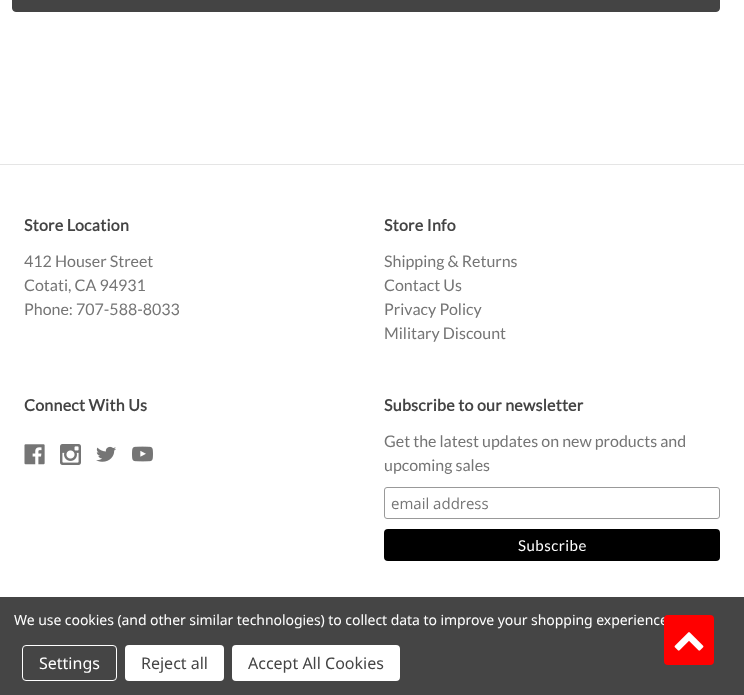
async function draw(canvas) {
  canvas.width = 744;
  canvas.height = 695;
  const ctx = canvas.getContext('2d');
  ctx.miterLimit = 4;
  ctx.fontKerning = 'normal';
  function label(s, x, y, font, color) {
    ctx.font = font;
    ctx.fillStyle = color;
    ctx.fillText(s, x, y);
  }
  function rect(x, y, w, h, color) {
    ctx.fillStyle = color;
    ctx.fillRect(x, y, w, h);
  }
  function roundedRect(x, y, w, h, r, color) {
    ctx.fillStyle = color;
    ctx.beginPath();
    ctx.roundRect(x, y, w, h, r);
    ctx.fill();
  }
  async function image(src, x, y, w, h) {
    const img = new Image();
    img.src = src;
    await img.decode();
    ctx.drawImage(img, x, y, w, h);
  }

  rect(0, 0, 744, 695, '#fff');
  ctx.fillStyle = '#444';
  ctx.beginPath();
  ctx.roundRect(12.5, -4.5, 707, 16, 3.5);
  ctx.fill();
  ctx.strokeStyle = '#444';
  ctx.stroke();
  rect(0, 164, 744, 1, '#e5e5e5');
  ctx.letterSpacing = '0.25px';
  label('Store Location', 24, 231, 'bold 16px Lato', '#444');
  ctx.letterSpacing = '0px';
  label('412 Houser Street', 24, 267, '16px Lato', '#757575');
  label('Cotati, CA 94931', 24, 291, '16px Lato', '#757575');
  label('Phone: 707-588-8033', 24, 315, '16px Lato', '#757575');
  ctx.letterSpacing = '0.25px';
  label('Store Info', 384, 231, 'bold 16px Lato', '#444');
  ctx.letterSpacing = '0px';
  label('Shipping & Returns', 384, 267, '16px Lato', '#757575');
  label('Contact Us', 384, 291, '16px Lato', '#757575');
  label('Privacy Policy', 384, 315, '16px Lato', '#757575');
  label('Military Discount', 384, 339, '16px Lato', '#757575');
  ctx.letterSpacing = '0.25px';
  label('Connect With Us', 24, 411, 'bold 16px Lato', '#444');
  await image('assets/img1.png', 24, 444, 21, 21);
  await image('assets/img2.png', 60, 444, 21, 21);
  await image('assets/img3.png', 96, 446, 20, 16);
  await image('assets/img4.png', 132, 446, 21, 16);
  label('Subscribe to our newsletter', 384, 411, 'bold 16px Lato', '#444');
  ctx.letterSpacing = '0px';
  label('Get the latest updates on new products and', 384, 447, '16px Lato', '#757575');
  label('upcoming sales', 384, 471, '16px Lato', '#757575');
  ctx.beginPath();
  ctx.roundRect(384.5, 487.5, 335, 31, 2.5);
  ctx.strokeStyle = '#999';
  ctx.stroke();
  label('email address', 391, 509, '15px Open Sans', '#757575');
  roundedRect(384, 529, 336, 32, 4, '#000');
  ctx.letterSpacing = '0.5px';
  label('Subscribe', 518, 551, '15px Lato', '#fff');
  rect(0, 597, 744, 98, '#454545');
  ctx.letterSpacing = '-0.05px';
  label('We use cookies (and other similar technologies) to collect data to improve your shopping experience', 14, 625, '14px Noto Sans', '#fff');
  roundedRect(664, 615, 50, 50, 4, '#f00');
  await image('assets/img5.png', 674, 632, 30, 19);
  ctx.beginPath();
  ctx.roundRect(22.5, 645.5, 94, 35, 3.5);
  ctx.strokeStyle = '#fff';
  ctx.stroke();
  ctx.letterSpacing = '0px';
  label('Settings', 39, 669, '16px Noto Sans', '#fff');
  roundedRect(125, 645, 99, 36, 4, '#fff');
  label('Reject all', 141, 669, '16px Noto Sans', '#444');
  roundedRect(232, 645, 168, 36, 4, '#fff');
  label('Accept All Cookies', 248, 669, '16px Noto Sans', '#444');
}

draw(document.querySelector('canvas'));
